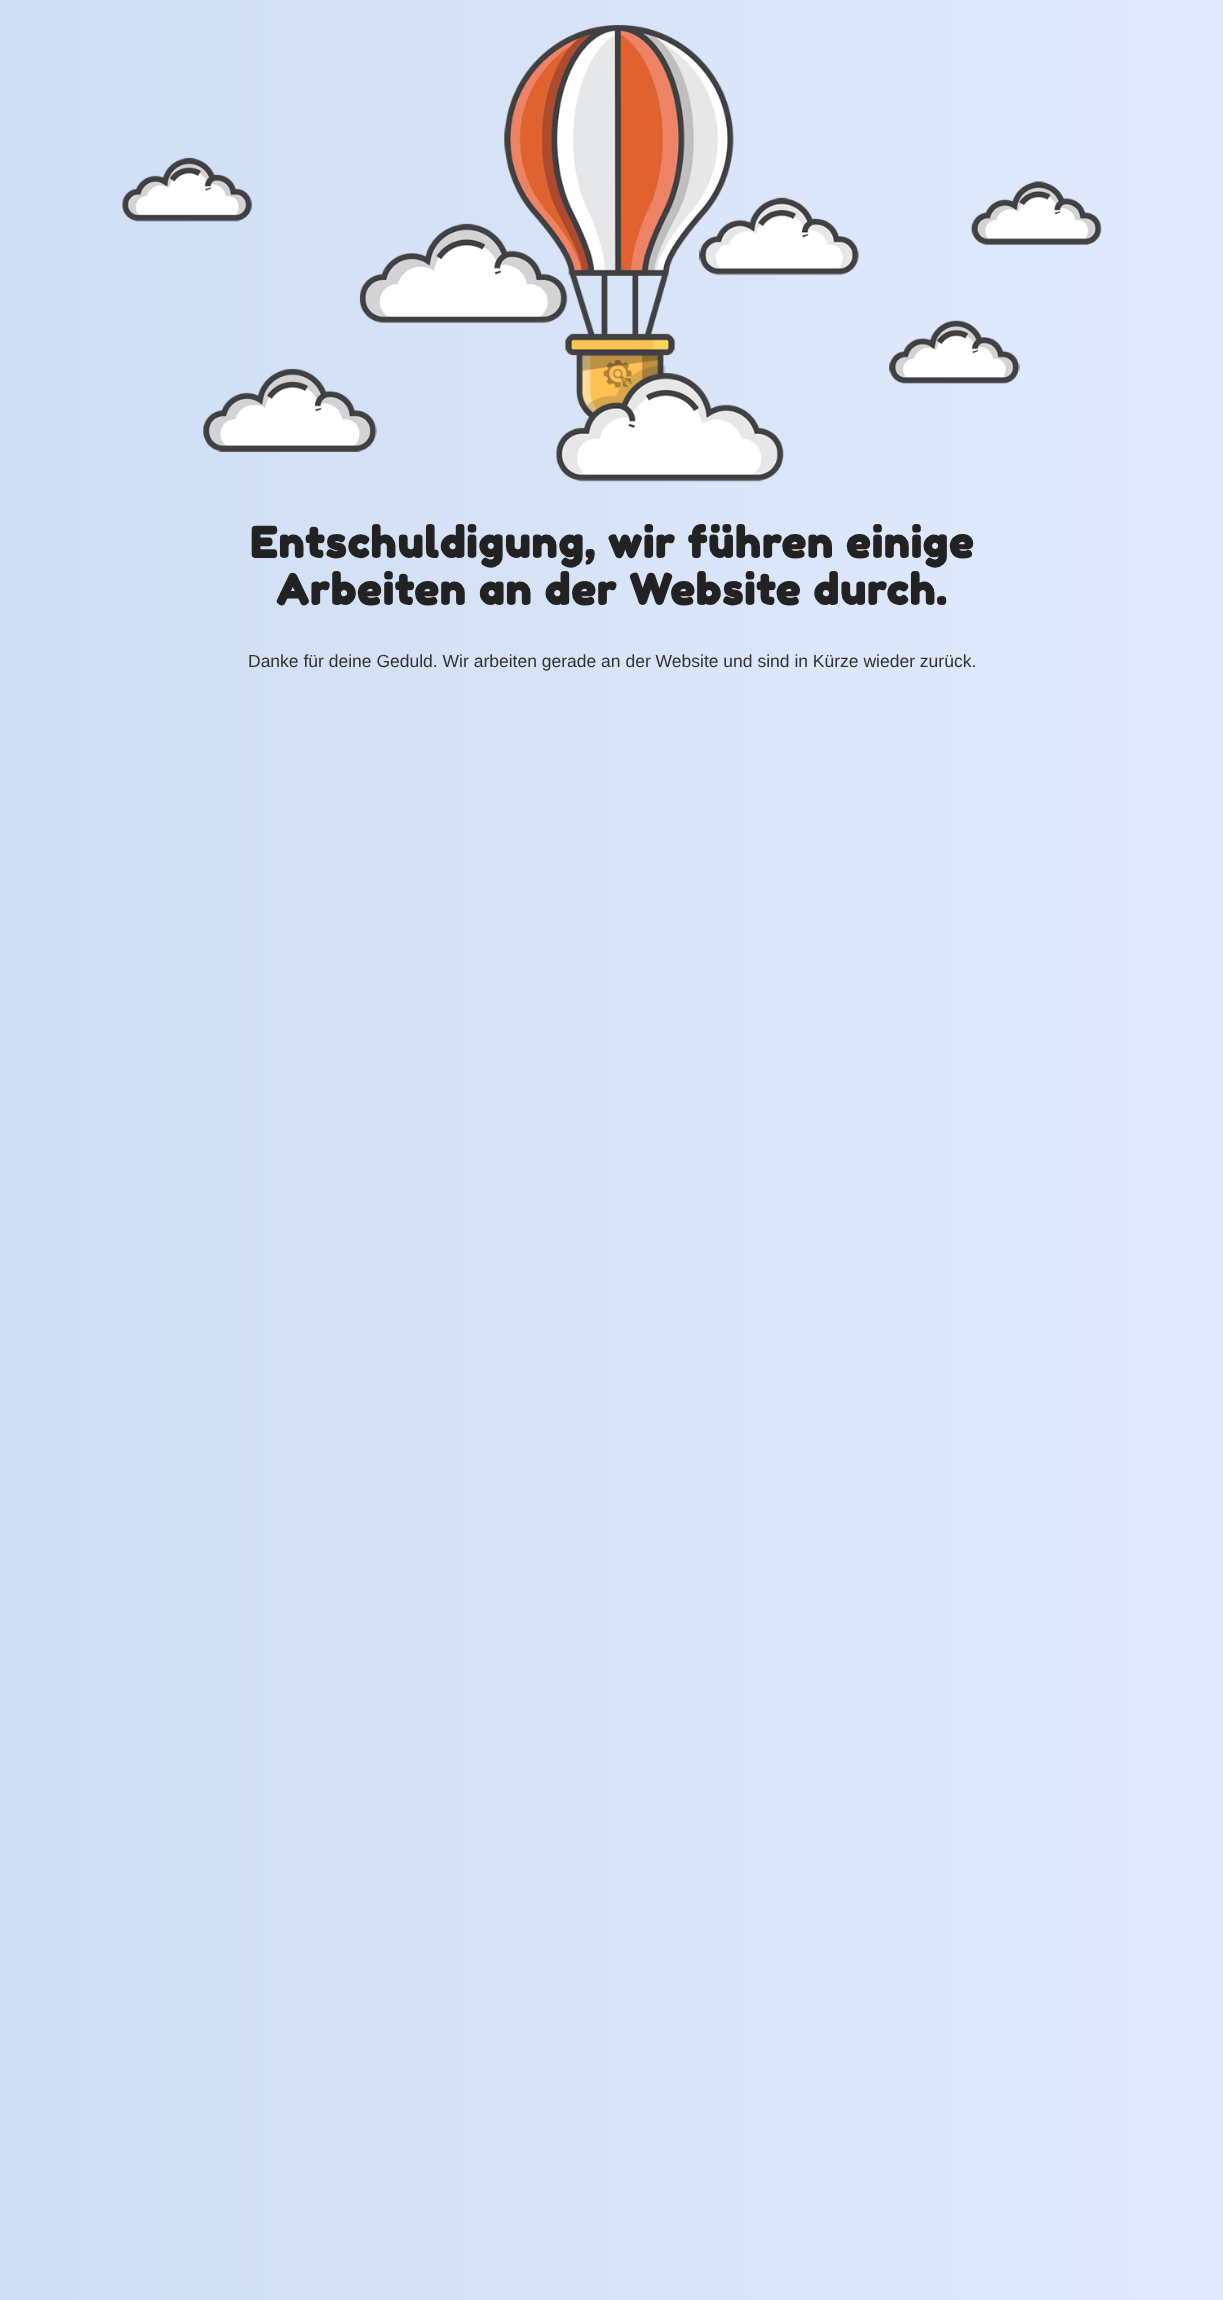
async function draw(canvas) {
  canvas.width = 1223;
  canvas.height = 2300;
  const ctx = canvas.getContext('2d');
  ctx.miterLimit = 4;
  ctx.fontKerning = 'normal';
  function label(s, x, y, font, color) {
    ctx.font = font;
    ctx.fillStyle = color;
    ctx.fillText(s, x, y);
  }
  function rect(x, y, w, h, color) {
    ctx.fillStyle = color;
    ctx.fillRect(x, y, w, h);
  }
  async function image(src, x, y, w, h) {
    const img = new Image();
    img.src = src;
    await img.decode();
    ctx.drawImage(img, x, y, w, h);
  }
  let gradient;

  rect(0, 0, 1223, 2300, '#fff');
  gradient = ctx.createLinearGradient(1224, 1150, 0, 1150);
  gradient.addColorStop(0, '#e0eafc');
  gradient.addColorStop(1, '#cfdef3');
  ctx.fillStyle = gradient;
  ctx.fillRect(0, 0, 1223, 2300);
  await image('assets/img1.png', 122, 25, 980, 457);
  ctx.letterSpacing = '1.25px';
  label('Entschuldigung, wir führen einige', 250, 558, 'bold 42.5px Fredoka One', '#222');
  label('Arbeiten an der Website durch.', 276, 605, 'bold 42.5px Fredoka One', '#222');
  ctx.letterSpacing = '0px';
  label('Danke für deine Geduld. Wir arbeiten gerade an der Website und sind in Kürze wieder zurück.', 248, 667, '17.5px Liberation Sans', '#313131');
}

draw(document.querySelector('canvas'));
